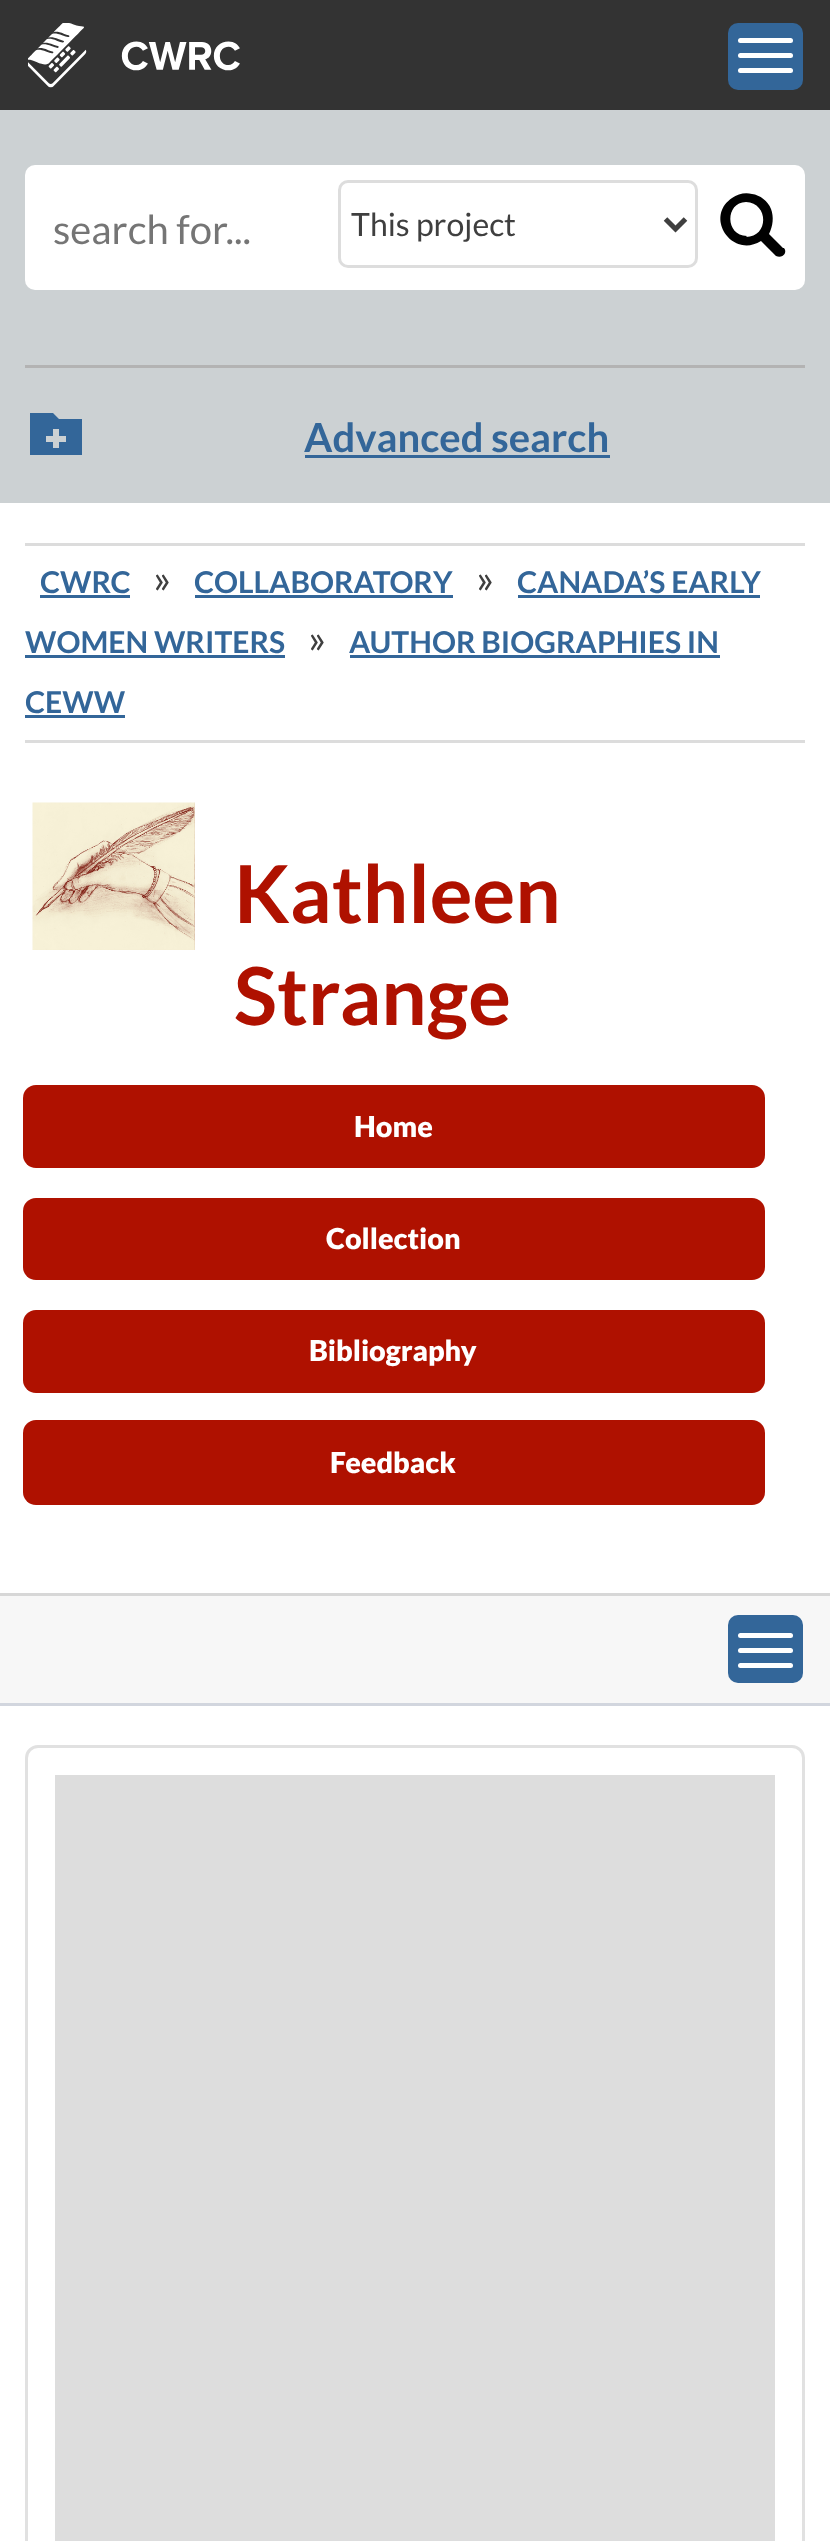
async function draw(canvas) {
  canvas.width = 830;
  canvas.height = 2541;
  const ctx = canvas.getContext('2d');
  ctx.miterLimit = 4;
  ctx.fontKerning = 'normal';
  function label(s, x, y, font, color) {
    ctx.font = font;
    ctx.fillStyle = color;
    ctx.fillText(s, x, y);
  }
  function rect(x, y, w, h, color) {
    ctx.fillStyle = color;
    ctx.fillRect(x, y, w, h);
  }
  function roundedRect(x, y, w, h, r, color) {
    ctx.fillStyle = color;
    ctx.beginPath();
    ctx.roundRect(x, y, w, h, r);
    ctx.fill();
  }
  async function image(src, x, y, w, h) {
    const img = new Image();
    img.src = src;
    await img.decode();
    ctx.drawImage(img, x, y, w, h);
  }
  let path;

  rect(0, 0, 830, 2541, '#fff');
  rect(0, 0, 830, 110, '#333');
  await image('assets/img1.png', 28, 23, 212, 65);
  roundedRect(728, 23, 75, 67, 10, '#369');
  roundedRect(738, 38, 55, 5, 2.5, '#fff');
  roundedRect(738, 53, 55, 5, 2.5, '#fff');
  roundedRect(738, 68, 55, 5, 2.5, '#fff');
  rect(0, 110, 830, 393, '#ccd1d3');
  roundedRect(25, 165, 780, 125, 10, '#fff');
  label('search for...', 53, 244, '40px Lato', '#757575');
  ctx.beginPath();
  ctx.roundRect(339.5, 181.5, 357, 85, 8.5);
  ctx.strokeStyle = '#ddd';
  ctx.lineWidth = 3;
  ctx.stroke();
  path = new Path2D('M665.5 219L675.5 229L685.5 219');
  ctx.strokeStyle = '#3f3f3f';
  ctx.lineWidth = 5;
  ctx.stroke(path);
  label('This project', 351, 236, '32px Lato', '#3f3f3f');
  ctx.fillStyle = '#010101';
  path = new Path2D('M783 248L769 234C773 226 774 217 771 209C768 201 760 195 752 194C745 192 738 194 732 198C704 217 732 259 761 241L776 256C782 259 788 253 784 248ZM747 236C725 236 725 202 746 202C769 203 769 237 746 237Z');
  ctx.fill(path);
  rect(25, 365, 780, 3, '#b3b3b3');
  ctx.fillStyle = '#369';
  path = new Path2D('M59 419L53 413H30V455H82V419ZM66 442H59V448H53V442H46V436H53V429H59V436H66Z');
  ctx.fill(path);
  label('Advanced search', 304, 452, 'bold 40px Lato', '#369');
  rect(305, 455, 305, 3, '#369');
  rect(25, 543, 780, 3, '#dcdcdc');
  rect(25, 740, 780, 3, '#dcdcdc');
  label('CWRC', 40, 593, 'bold 30px Lato', '#369');
  rect(40, 595, 90, 3, '#369');
  label('»', 153, 593, '40px Lato', '#3f3f3f');
  label('COLLABORATORY', 194, 593, 'bold 30px Lato', '#369');
  rect(195, 595, 258, 3, '#369');
  label('»', 476, 593, '40px Lato', '#3f3f3f');
  label('CANADA’S EARLY', 517, 593, 'bold 30px Lato', '#369');
  rect(518, 595, 242, 3, '#369');
  label('WOMEN WRITERS', 25, 653, 'bold 30px Lato', '#369');
  rect(25, 655, 260, 3, '#369');
  label('»', 308, 653, '40px Lato', '#3f3f3f');
  label('AUTHOR BIOGRAPHIES IN', 349, 653, 'bold 30px Lato', '#369');
  rect(350, 655, 370, 3, '#369');
  label('CEWW', 25, 713, 'bold 30px Lato', '#369');
  rect(25, 715, 100, 3, '#369');
  await image('assets/img2.png', 32, 802, 163, 148);
  label('Kathleen', 234, 923, 'bold 80px Lato', '#af1100');
  label('Strange', 234, 1025, 'bold 80px Lato', '#af1100');
  roundedRect(23, 1085, 742, 83, 13, '#af1100');
  label('Home', 354, 1137, '900 28.75px Lato', '#fff');
  roundedRect(23, 1198, 742, 82, 13, '#af1100');
  label('Collection', 326, 1249, '900 28.75px Lato', '#fff');
  roundedRect(23, 1310, 742, 83, 13, '#af1100');
  label('Bibliography', 309, 1361, '900 28.75px Lato', '#fff');
  roundedRect(23, 1420, 742, 85, 13, '#af1100');
  label('Feedback', 330, 1473, '900 28.75px Lato', '#fff');
  rect(0, 1596, 830, 107, '#f7f7f7');
  rect(0, 1593, 830, 3, '#d7d7d7');
  roundedRect(728, 1615, 75, 68, 10, '#369');
  roundedRect(738, 1633, 55, 5, 2.5, '#fff');
  roundedRect(738, 1648, 55, 5, 2.5, '#fff');
  roundedRect(738, 1663, 55, 5, 2.5, '#fff');
  rect(0, 1703, 830, 3, '#d2d6de');
  ctx.beginPath();
  ctx.roundRect(26.5, 1746.5, 777, 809, 11.5);
  ctx.strokeStyle = '#e1e1e1';
  ctx.lineWidth = 3;
  ctx.stroke();
  rect(55, 1775, 720, 766, '#ddd');
}

draw(document.querySelector('canvas'));
